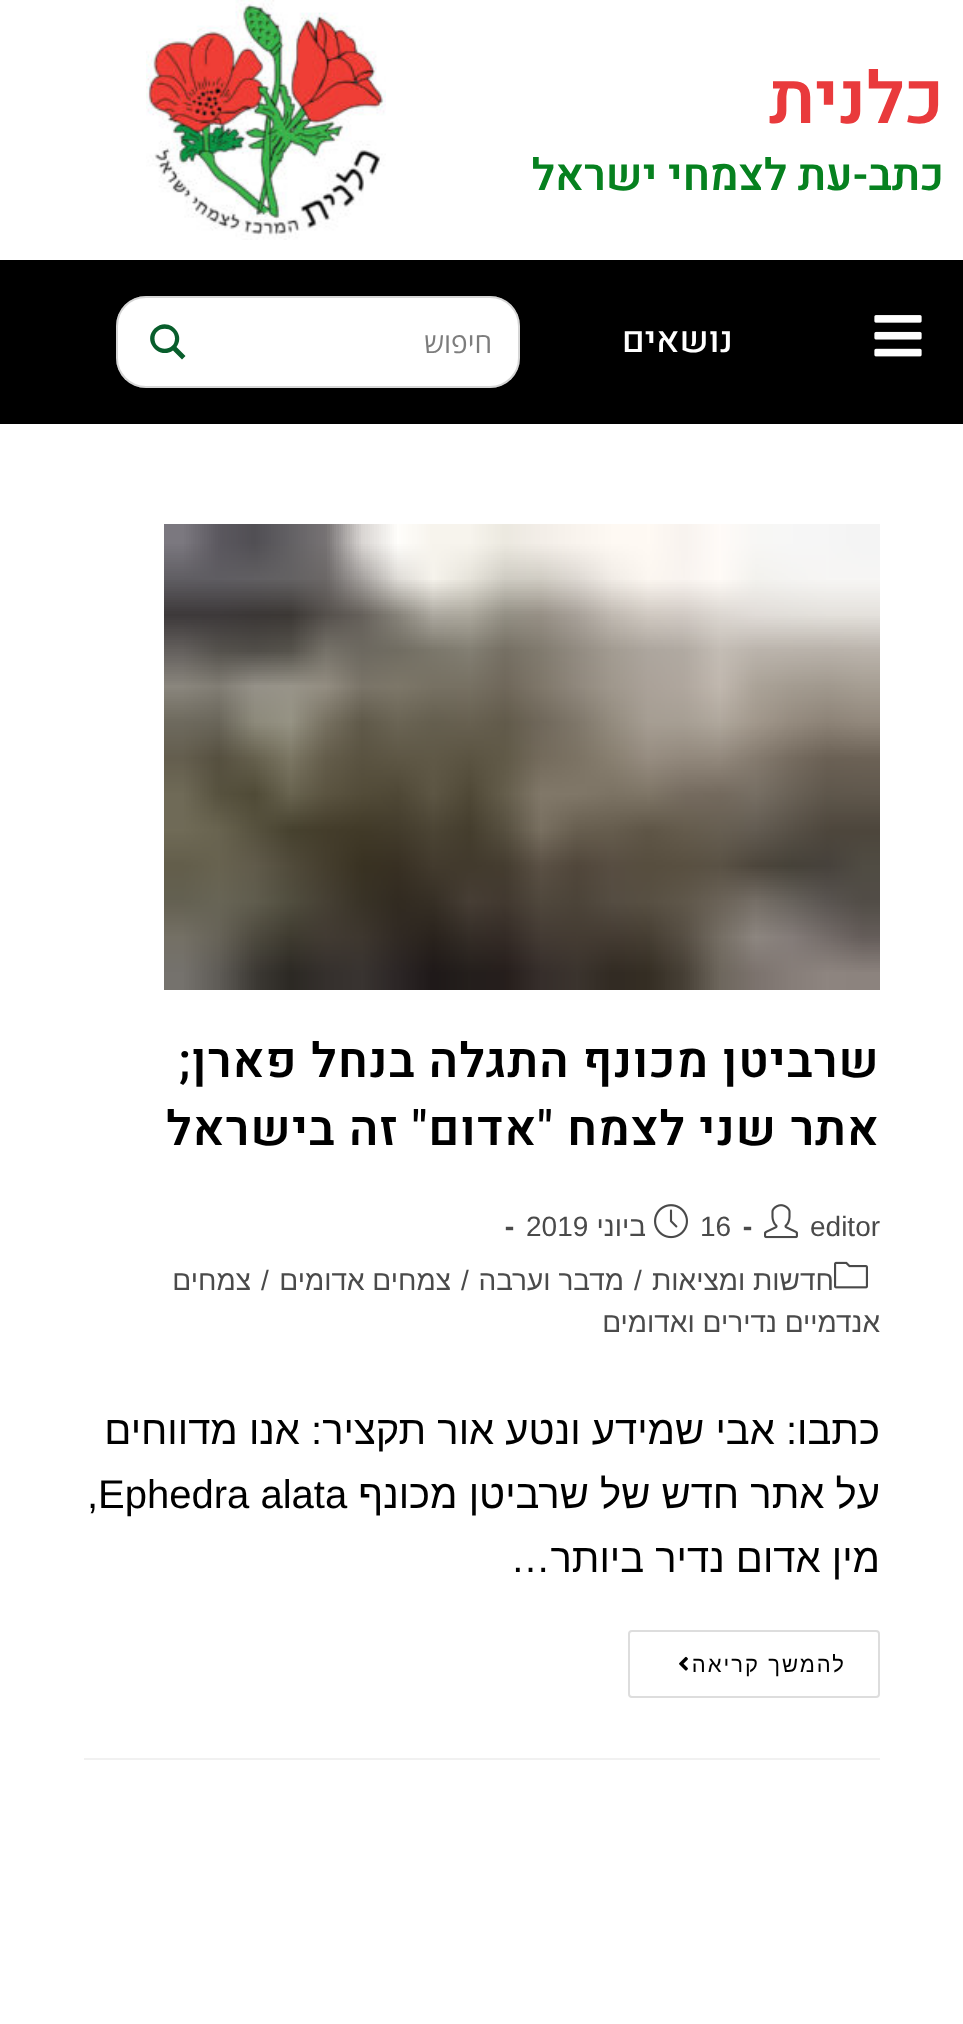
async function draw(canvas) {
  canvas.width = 963;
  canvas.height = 2024;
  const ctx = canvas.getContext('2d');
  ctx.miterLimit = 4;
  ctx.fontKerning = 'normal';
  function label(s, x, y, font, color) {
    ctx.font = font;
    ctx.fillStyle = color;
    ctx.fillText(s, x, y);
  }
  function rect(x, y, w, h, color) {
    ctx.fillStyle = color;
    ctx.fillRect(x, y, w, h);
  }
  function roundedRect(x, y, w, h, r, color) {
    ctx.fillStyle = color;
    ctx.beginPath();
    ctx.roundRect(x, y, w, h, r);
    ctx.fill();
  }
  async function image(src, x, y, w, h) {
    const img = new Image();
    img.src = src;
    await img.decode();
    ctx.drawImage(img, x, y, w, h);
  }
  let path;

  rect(0, 0, 963, 2024, '#fff');
  ctx.direction = 'rtl';
  label('כלנית', 944, 123, '600 72px Heebo', '#e93a3c');
  label('כתב-עת לצמחי ישראל', 944, 190, '600 44px Heebo', '#06811f');
  await image('assets/img1.png', 146, 0, 240, 240);
  rect(0, 260, 963, 164, '#000');
  await image('assets/img2.png', 874, 315, 48, 42);
  label('נושאים', 733, 352, '500 36px Heebo', '#fff');
  roundedRect(116, 296, 404, 92, 30, '#fff');
  ctx.beginPath();
  ctx.roundRect(117, 297, 402, 90, 29);
  ctx.strokeStyle = '#7a7a7a4f';
  ctx.lineWidth = 2;
  ctx.stroke();
  label('חיפוש', 492, 353, '28px Open Sans', '#7d7d7d');
  ctx.fillStyle = '#085e2c';
  path = new Path2D('M185.5 356L176.5 347C186.5 333 167.5 316 154.5 328.5C142 341 159 360 173 350.5L182 359.5ZM154.5 338.5C154.5 325.5 175 325.5 175 338.5C175 352 154.5 352 154.5 338.5Z');
  ctx.fill(path);
  rect(84, 1758, 796, 2, '#f1f1f1');
  await image('assets/img3.png', 164, 524, 716, 466);
  ctx.letterSpacing = '1.2px';
  label('שרביטן מכונף התגלה בנחל פארן;', 880, 1077, '600 48px Heebo', '#000');
  label('אתר שני לצמח "אדום" זה בישראל', 880, 1145, '600 48px Heebo', '#000');
  ctx.letterSpacing = '0px';
  ctx.direction = 'ltr';
  label('editor', 810, 1236, '28px Liberation Sans', '#4a4a4a');
  await image('assets/img4.png', 764, 1204, 34, 35);
  label('-', 743, 1236, 'bold 28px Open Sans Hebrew', '#4a4a4a');
  label('16', 700, 1236, '28px Liberation Sans', '#4a4a4a');
  await image('assets/img5.png', 654, 1204, 34, 35);
  ctx.direction = 'rtl';
  label('ביוני', 646, 1236, '28px Liberation Sans', '#4a4a4a');
  ctx.direction = 'ltr';
  label('2019', 526, 1236, '28px Liberation Sans', '#4a4a4a');
  label('-', 505, 1236, 'bold 28px Open Sans Hebrew', '#4a4a4a');
  await image('assets/img6.png', 834, 1261, 34, 28);
  ctx.direction = 'rtl';
  label('חדשות ומציאות', 834, 1290, '28px Liberation Sans', '#4a4a4a');
  ctx.direction = 'ltr';
  label('/', 634, 1290, '28px Liberation Sans', '#4a4a4a');
  ctx.direction = 'rtl';
  label('מדבר וערבה', 624, 1290, '28px Liberation Sans', '#4a4a4a');
  ctx.direction = 'ltr';
  label('/', 461, 1290, '28px Liberation Sans', '#4a4a4a');
  ctx.direction = 'rtl';
  label('צמחים אדומים', 451, 1290, '28px Liberation Sans', '#4a4a4a');
  ctx.direction = 'ltr';
  label('/', 261, 1290, '28px Liberation Sans', '#4a4a4a');
  ctx.direction = 'rtl';
  label('צמחים', 251, 1290, '28px Liberation Sans', '#4a4a4a');
  label('אנדמיים נדירים ואדומים', 880, 1332, '28px Liberation Sans', '#4a4a4a');
  label('כתבו: אבי שמידע ונטע אור תקציר: אנו מדווחים', 880, 1444, '40px Liberation Sans', '#000');
  label('על אתר חדש של שרביטן מכונף', 880, 1508, '40px Liberation Sans', '#000');
  ctx.direction = 'ltr';
  label(',Ephedra alata', 87, 1508, '40px Liberation Sans', '#000');
  ctx.direction = 'rtl';
  label('מין אדום נדיר ביותר…', 880, 1572, '40px Liberation Sans', '#000');
  ctx.beginPath();
  ctx.roundRect(629, 1631, 250, 66, 3);
  ctx.strokeStyle = '#ddd';
  ctx.stroke();
  ctx.letterSpacing = '2px';
  label('להמשך קריאה', 846, 1672, '22px Liberation Sans', '#000');
  await image('assets/img7.png', 679, 1656, 9, 15);
}

draw(document.querySelector('canvas'));
